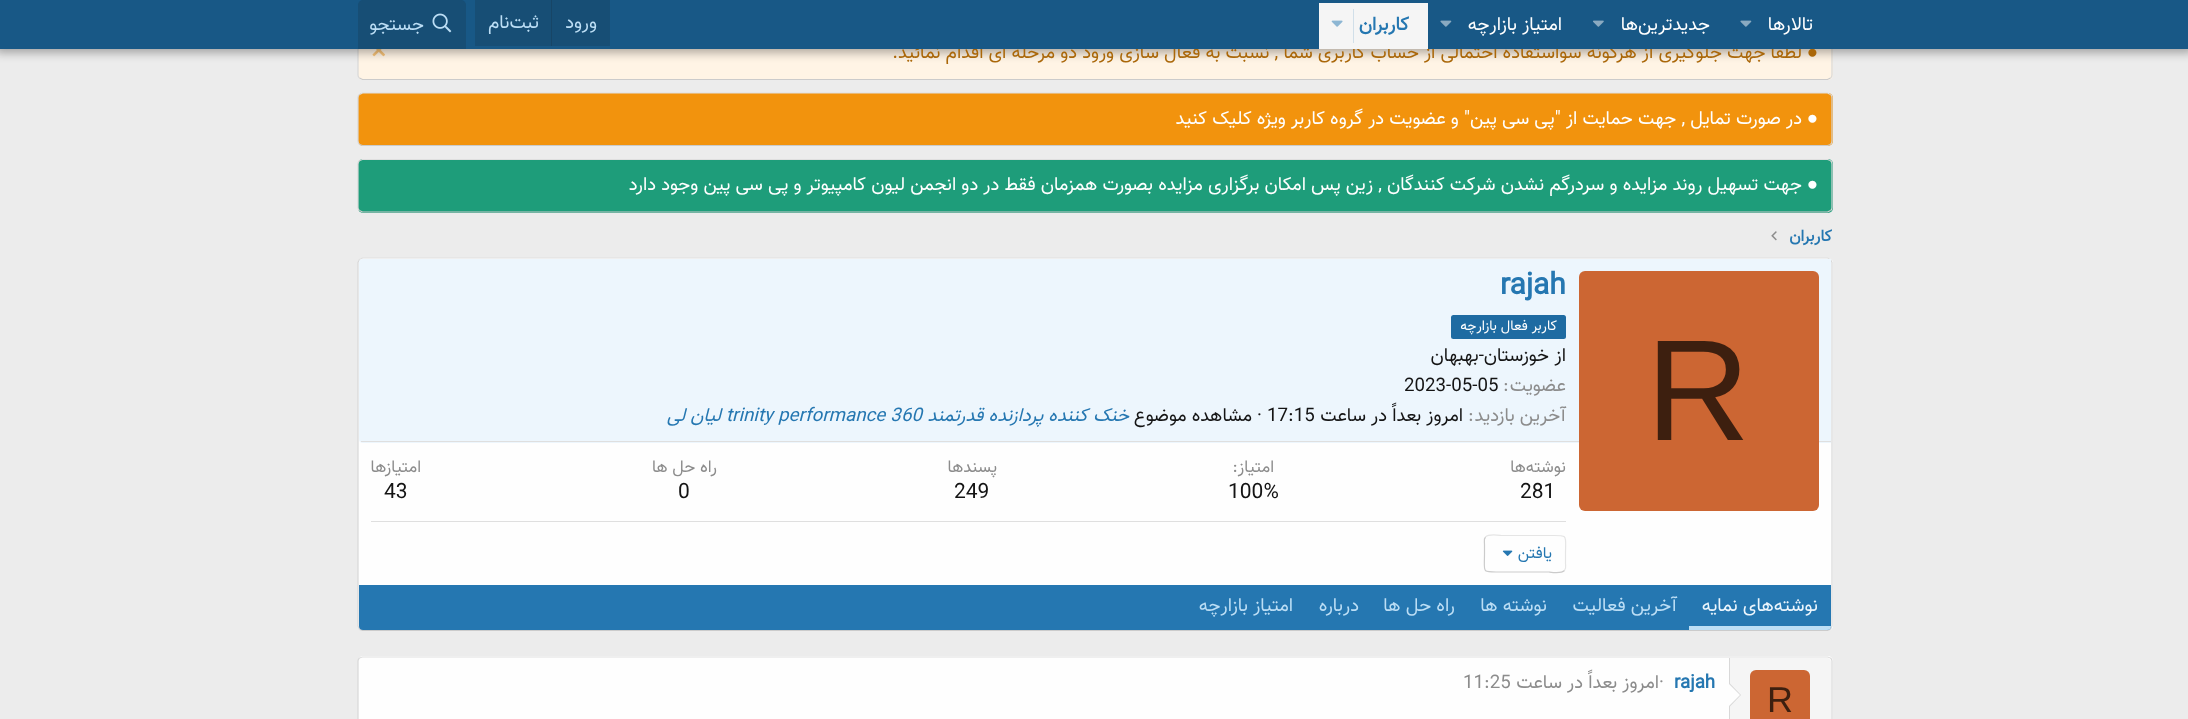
async function draw(canvas) {
  canvas.width = 2188;
  canvas.height = 719;
  const ctx = canvas.getContext('2d');
  ctx.miterLimit = 4;
  ctx.fontKerning = 'normal';
  function label(s, x, y, font, color) {
    ctx.font = font;
    ctx.fillStyle = color;
    ctx.fillText(s, x, y);
  }
  function rect(x, y, w, h, color) {
    ctx.fillStyle = color;
    ctx.fillRect(x, y, w, h);
  }
  function roundedRect(x, y, w, h, r, color) {
    ctx.fillStyle = color;
    ctx.beginPath();
    ctx.roundRect(x, y, w, h, r);
    ctx.fill();
  }
  async function image(src, x, y, w, h) {
    const img = new Image();
    img.src = src;
    await img.decode();
    ctx.drawImage(img, x, y, w, h);
  }
  let path;

  rect(0, 0, 2188, 719, '#ececec');
  roundedRect(358, 26, 1475, 54, 5, '#fff4e5');
  path = new Path2D('M1830.5 28C1831.5 29 1832 30 1832 31V75C1832 76 1831.5 77.5 1830.5 78');
  ctx.strokeStyle = '#d8d8d8';
  ctx.lineWidth = 1.2;
  ctx.stroke(path);
  path = new Path2D('M1830.5 78L1827.5 79.5H362.5L359.5 78');
  ctx.strokeStyle = '#cbcbcb';
  ctx.stroke(path);
  path = new Path2D('M359.5 78C358.5 77.5 358 76 358 75V31C358 30 358.5 29 359.5 28');
  ctx.strokeStyle = '#d8d8d8';
  ctx.stroke(path);
  await image('assets/img5.png', 372, 49, 13, 8);
  ctx.fillStyle = '#0000004d';
  ctx.filter = 'blur(5px)';
  ctx.beginPath();
  ctx.rect(-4, -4, 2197, 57);
  ctx.fill();
  ctx.filter = 'none';
  ctx.direction = 'rtl';
  label('●', 1818, 58, '18.75px Liberation Serif', '#aa6709');
  label('لطفا جهت جلوگیری از هرگونه سواستفاده احتمالی از حساب کاربری شما , نسبت به فعال سازی ورود دو مرحله ای اقدام نمائید.', 1802, 58, '18.75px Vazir', '#aa6709');
  rect(0, 0, 2188, 49, '#185886');
  label('تالارها', 1813, 30, '18.75px Vazir', '#fff');
  await image('assets/img1.png', 1740, 20, 12, 7);
  label('جدیدترین‌ها', 1710, 30, '18.75px Vazir', '#fff');
  await image('assets/img2.png', 1593, 20, 11, 7);
  label('امتیاز بازارچه', 1562, 30, '18.75px Vazir', '#fff');
  await image('assets/img1.png', 1440, 20, 12, 7);
  rect(1319, 3, 109, 46, '#f5f5f5');
  label('کاربران', 1409, 30, 'bold 18.75px Vazir', '#2577b1');
  rect(1353, 9, 1, 34, '#d1dfe9');
  await image('assets/img3.png', 1331, 20, 12, 7);
  rect(475, 0, 135, 46, '#174e75');
  label('ورود', 597, 28, '18.75px Vazir', '#bcdef5');
  rect(551, 0, 1, 46, '#174566');
  label('ثبت‌نام', 539, 28, '18.75px Vazir', '#bcdef5');
  ctx.fillStyle = '#174e75';
  ctx.beginPath();
  ctx.roundRect(358, 0, 108, 49, [5, 5, 0, 0]);
  ctx.fill();
  await image('assets/img4.png', 432, 13, 20, 20);
  label('جستجو', 424, 30, '18.75px Vazir', '#bcdef5');
  roundedRect(358, 93, 1475, 53, 5, '#f2930d');
  path = new Path2D('M359.5 94.5L362.5 93H1827.5L1830.5 94.5');
  ctx.strokeStyle = '#dfdfdf';
  ctx.stroke(path);
  path = new Path2D('M1830.5 94.5C1831.5 95 1832 96.5 1832 97.5V141C1832 142.5 1831.5 143.5 1830.5 144.5');
  ctx.strokeStyle = '#d8d8d8';
  ctx.stroke(path);
  path = new Path2D('M1830.5 144.5L1827.5 145.5H362.5L359.5 144.5');
  ctx.strokeStyle = '#cbcbcb';
  ctx.stroke(path);
  path = new Path2D('M359.5 144.5C358.5 143.5 358 142.5 358 141V97.5C358 96.5 358.5 95 359.5 94.5');
  ctx.strokeStyle = '#d8d8d8';
  ctx.stroke(path);
  label('●', 1818, 124, '18.75px Liberation Serif', '#fff');
  label('در صورت تمایل , جهت حمایت از "پی سی پین" و عضویت در گروه کاربر ویژه کلیک کنید', 1802, 124, '18.75px Vazir', '#fff');
  roundedRect(358, 159, 1475, 54, 5, '#1e9d7a');
  path = new Path2D('M359.5 160.5L362.5 159.5H1827.5L1830.5 160.5');
  ctx.strokeStyle = '#dfdfdf';
  ctx.stroke(path);
  path = new Path2D('M1830.5 160.5C1831.5 161.5 1832 162.5 1832 164V207.5C1832 208.5 1831.5 210 1830.5 210.5');
  ctx.strokeStyle = '#d8d8d8';
  ctx.stroke(path);
  path = new Path2D('M1830.5 210.5L1827.5 212H362.5L359.5 210.5');
  ctx.strokeStyle = '#cbcbcb';
  ctx.stroke(path);
  path = new Path2D('M359.5 210.5C358.5 210 358 208.5 358 207.5V164C358 162.5 358.5 161.5 359.5 160.5');
  ctx.strokeStyle = '#d8d8d8';
  ctx.stroke(path);
  label('●', 1818, 190, '18.75px Liberation Serif', '#fff');
  label('جهت تسهیل روند مزایده و سردرگم نشدن شرکت کنندگان , زین پس امکان برگزاری مزایده بصورت همزمان فقط در دو انجمن لیون کامپیوتر و پی سی پین وجود دارد', 1802, 190, '18.75px Vazir', '#fff');
  label('کاربران', 1832, 241, 'bold 16px Vazir', '#2577b1');
  await image('assets/img6.png', 1771, 231, 6, 10);
  roundedRect(358, 258, 1475, 373, 5, '#fefefe');
  path = new Path2D('M359.5 259.5L362.5 258H1827.5L1830.5 259.5');
  ctx.strokeStyle = '#dfdfdf';
  ctx.stroke(path);
  path = new Path2D('M1830.5 259.5L1832 262.5V626L1830.5 629.5');
  ctx.strokeStyle = '#d8d8d8';
  ctx.stroke(path);
  path = new Path2D('M1830.5 629.5L1827.5 630.5H362.5L359.5 629.5');
  ctx.strokeStyle = '#cbcbcb';
  ctx.stroke(path);
  path = new Path2D('M359.5 629.5L358 626V262.5L359.5 259.5');
  ctx.strokeStyle = '#d8d8d8';
  ctx.stroke(path);
  ctx.fillStyle = '#edf6fd';
  ctx.beginPath();
  ctx.roundRect(359, 259, 1472, 184, [4, 0, 0, 4]);
  ctx.fill();
  rect(361, 441, 1470, 1, '#dfdfdf');
  roundedRect(1579, 271, 240, 240, 6, '#c63');
  ctx.direction = 'ltr';
  label('R', 1646, 440, '144px Liberation Sans', '#3d1f0f');
  label('rajah', 1500, 294, 'bold 30px Vazir', '#2577b1');
  roundedRect(1451, 315, 115, 24, 2.5, '#1e6ba2');
  ctx.direction = 'rtl';
  label('کاربر فعال بازارچه', 1557, 330, '14px Vazir', '#fff');
  label('از', 1566, 361, '18.75px Vazir', '#141414');
  label('خوزستان-بهبهان', 1549, 361, '18.75px Vazir', '#141414');
  label('عضویت', 1566, 391, '18.75px Vazir', '#8c8c8c');
  ctx.direction = 'ltr';
  label(':', 1503, 391, '18.75px Vazir', '#8c8c8c');
  label('2023-05-05', 1404, 391, '18.75px Vazir', '#141414');
  ctx.direction = 'rtl';
  label('آخرین بازدید', 1566, 421, '18.75px Vazir', '#8c8c8c');
  ctx.direction = 'ltr';
  label(':', 1468, 421, '18.75px Vazir', '#8c8c8c');
  ctx.direction = 'rtl';
  label('امروز بعداً در ساعت', 1463, 421, '18.75px Vazir', '#141414');
  ctx.direction = 'ltr';
  label('17:15', 1267, 421, '18.75px Vazir', '#141414');
  label('·', 1257, 421, '18.75px Vazir', '#141414');
  ctx.direction = 'rtl';
  label('مشاهده موضوع', 1252, 421, '18.75px Vazir', '#141414');
  label('خنک کننده پردازنده قدرتمند', 1129, 421, 'italic 18.75px Vazir', '#2577b1');
  ctx.direction = 'ltr';
  label('trinity performance 360', 726, 421, 'italic 18.75px Vazir', '#2577b1');
  ctx.direction = 'rtl';
  label('لیان لی', 721, 421, 'italic 18.75px Vazir', '#2577b1');
  label('نوشته‌ها', 1566, 472, '17px Vazir', '#8c8c8c');
  ctx.direction = 'ltr';
  label('281', 1520, 498, '21px Vazir', '#141414');
  ctx.direction = 'rtl';
  label('امتیاز:', 1274, 472, '17px Vazir', '#8c8c8c');
  ctx.direction = 'ltr';
  label('100%', 1228, 498, '21px Vazir', '#141414');
  ctx.direction = 'rtl';
  label('پسندها', 997, 472, '17px Vazir', '#8c8c8c');
  ctx.direction = 'ltr';
  label('249', 954, 498, '21px Vazir', '#141414');
  ctx.direction = 'rtl';
  label('راه حل ها', 717, 472, '17px Vazir', '#8c8c8c');
  ctx.direction = 'ltr';
  label('0', 678, 498, '21px Vazir', '#141414');
  ctx.direction = 'rtl';
  label('امتیازها', 421, 472, '17px Vazir', '#8c8c8c');
  ctx.direction = 'ltr';
  label('43', 384, 498, '21px Vazir', '#141414');
  rect(371, 521, 1195, 1, '#dfdfdf');
  path = new Path2D('M1485.5 537C1489 533.5 1500.5 535.5 1501 535.5H1549C1569 535.5 1565.5 534 1565.5 554V563C1565.5 565.5 1566.5 568.5 1564.5 570.5');
  ctx.strokeStyle = '#e5e5e5';
  ctx.stroke(path);
  path = new Path2D('M1564.5 570.5C1561 574 1549.5 572 1549 572H1501C1481 572 1484.5 573.5 1484.5 554V544.5C1484.5 542 1483.5 539 1485.5 537');
  ctx.strokeStyle = '#cbcbcb';
  ctx.stroke(path);
  ctx.direction = 'rtl';
  label('یافتن', 1552, 558, '16px Vazir', '#2577b1');
  await image('assets/img7.png', 1502, 550, 11, 6);
  ctx.beginPath();
  ctx.roundRect(359, 585, 1472, 45, [0, 0, 4, 4]);
  ctx.fill();
  ctx.fillStyle = '#bcdef5';
  ctx.beginPath();
  ctx.roundRect(1689, 626, 142, 4, [0, 0, 4, 0]);
  ctx.fill();
  label('نوشته‌های نمایه', 1818, 611, '18.75px Vazir', '#edf6fd');
  label('آخرین فعالیت', 1677, 611, '18.75px Vazir', '#bcdef5');
  label('نوشته ها', 1547, 611, '18.75px Vazir', '#bcdef5');
  label('راه حل ها', 1455, 611, '18.75px Vazir', '#bcdef5');
  label('درباره', 1359, 611, '18.75px Vazir', '#bcdef5');
  label('امتیاز بازارچه', 1293, 611, '18.75px Vazir', '#bcdef5');
  roundedRect(358, 656, 1475, 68, 5, '#fefefe');
  path = new Path2D('M359.5 658L362.5 657H1827.5L1830.5 658');
  ctx.strokeStyle = '#dfdfdf';
  ctx.stroke(path);
  path = new Path2D('M1830.5 658C1831.5 659 1832 660 1832 661V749C1832 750 1831.5 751 1830.5 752');
  ctx.strokeStyle = '#d8d8d8';
  ctx.stroke(path);
  path = new Path2D('M359.5 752C358.5 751 358 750 358 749V661C358 660 358.5 659 359.5 658');
  ctx.stroke(path);
  ctx.direction = 'ltr';
  label('rajah', 1674, 688, 'bold 18.75px Vazir', '#2577b1');
  label('·', 1659, 688, '18.75px Vazir', '#8c8c8c');
  ctx.direction = 'rtl';
  label('امروز بعداً در ساعت', 1659, 688, '18.75px Vazir', '#8c8c8c');
  ctx.direction = 'ltr';
  label('11:25', 1463, 688, '18.75px Vazir', '#8c8c8c');
  ctx.fillStyle = '#f5f5f5';
  path = new Path2D('M1729 658H1827C1829 658 1831 660 1831 662V719C1831 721 1829 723 1827 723H1729Z');
  ctx.fill(path);
  rect(1729, 658, 1, 61, '#d8d8d8');
  roundedRect(1750, 670, 60, 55, 6, '#c63');
  label('R', 1767, 712, '36px Liberation Sans', '#3d1f0f');
  ctx.fillStyle = '#d8d8d8';
  path = new Path2D('M1729 707.5V682.5L1741 695Z');
  ctx.fill(path);
  ctx.fillStyle = '#fefefe';
  path = new Path2D('M1729 706V684L1740 695Z');
  ctx.fill(path);
}

draw(document.querySelector('canvas'));
